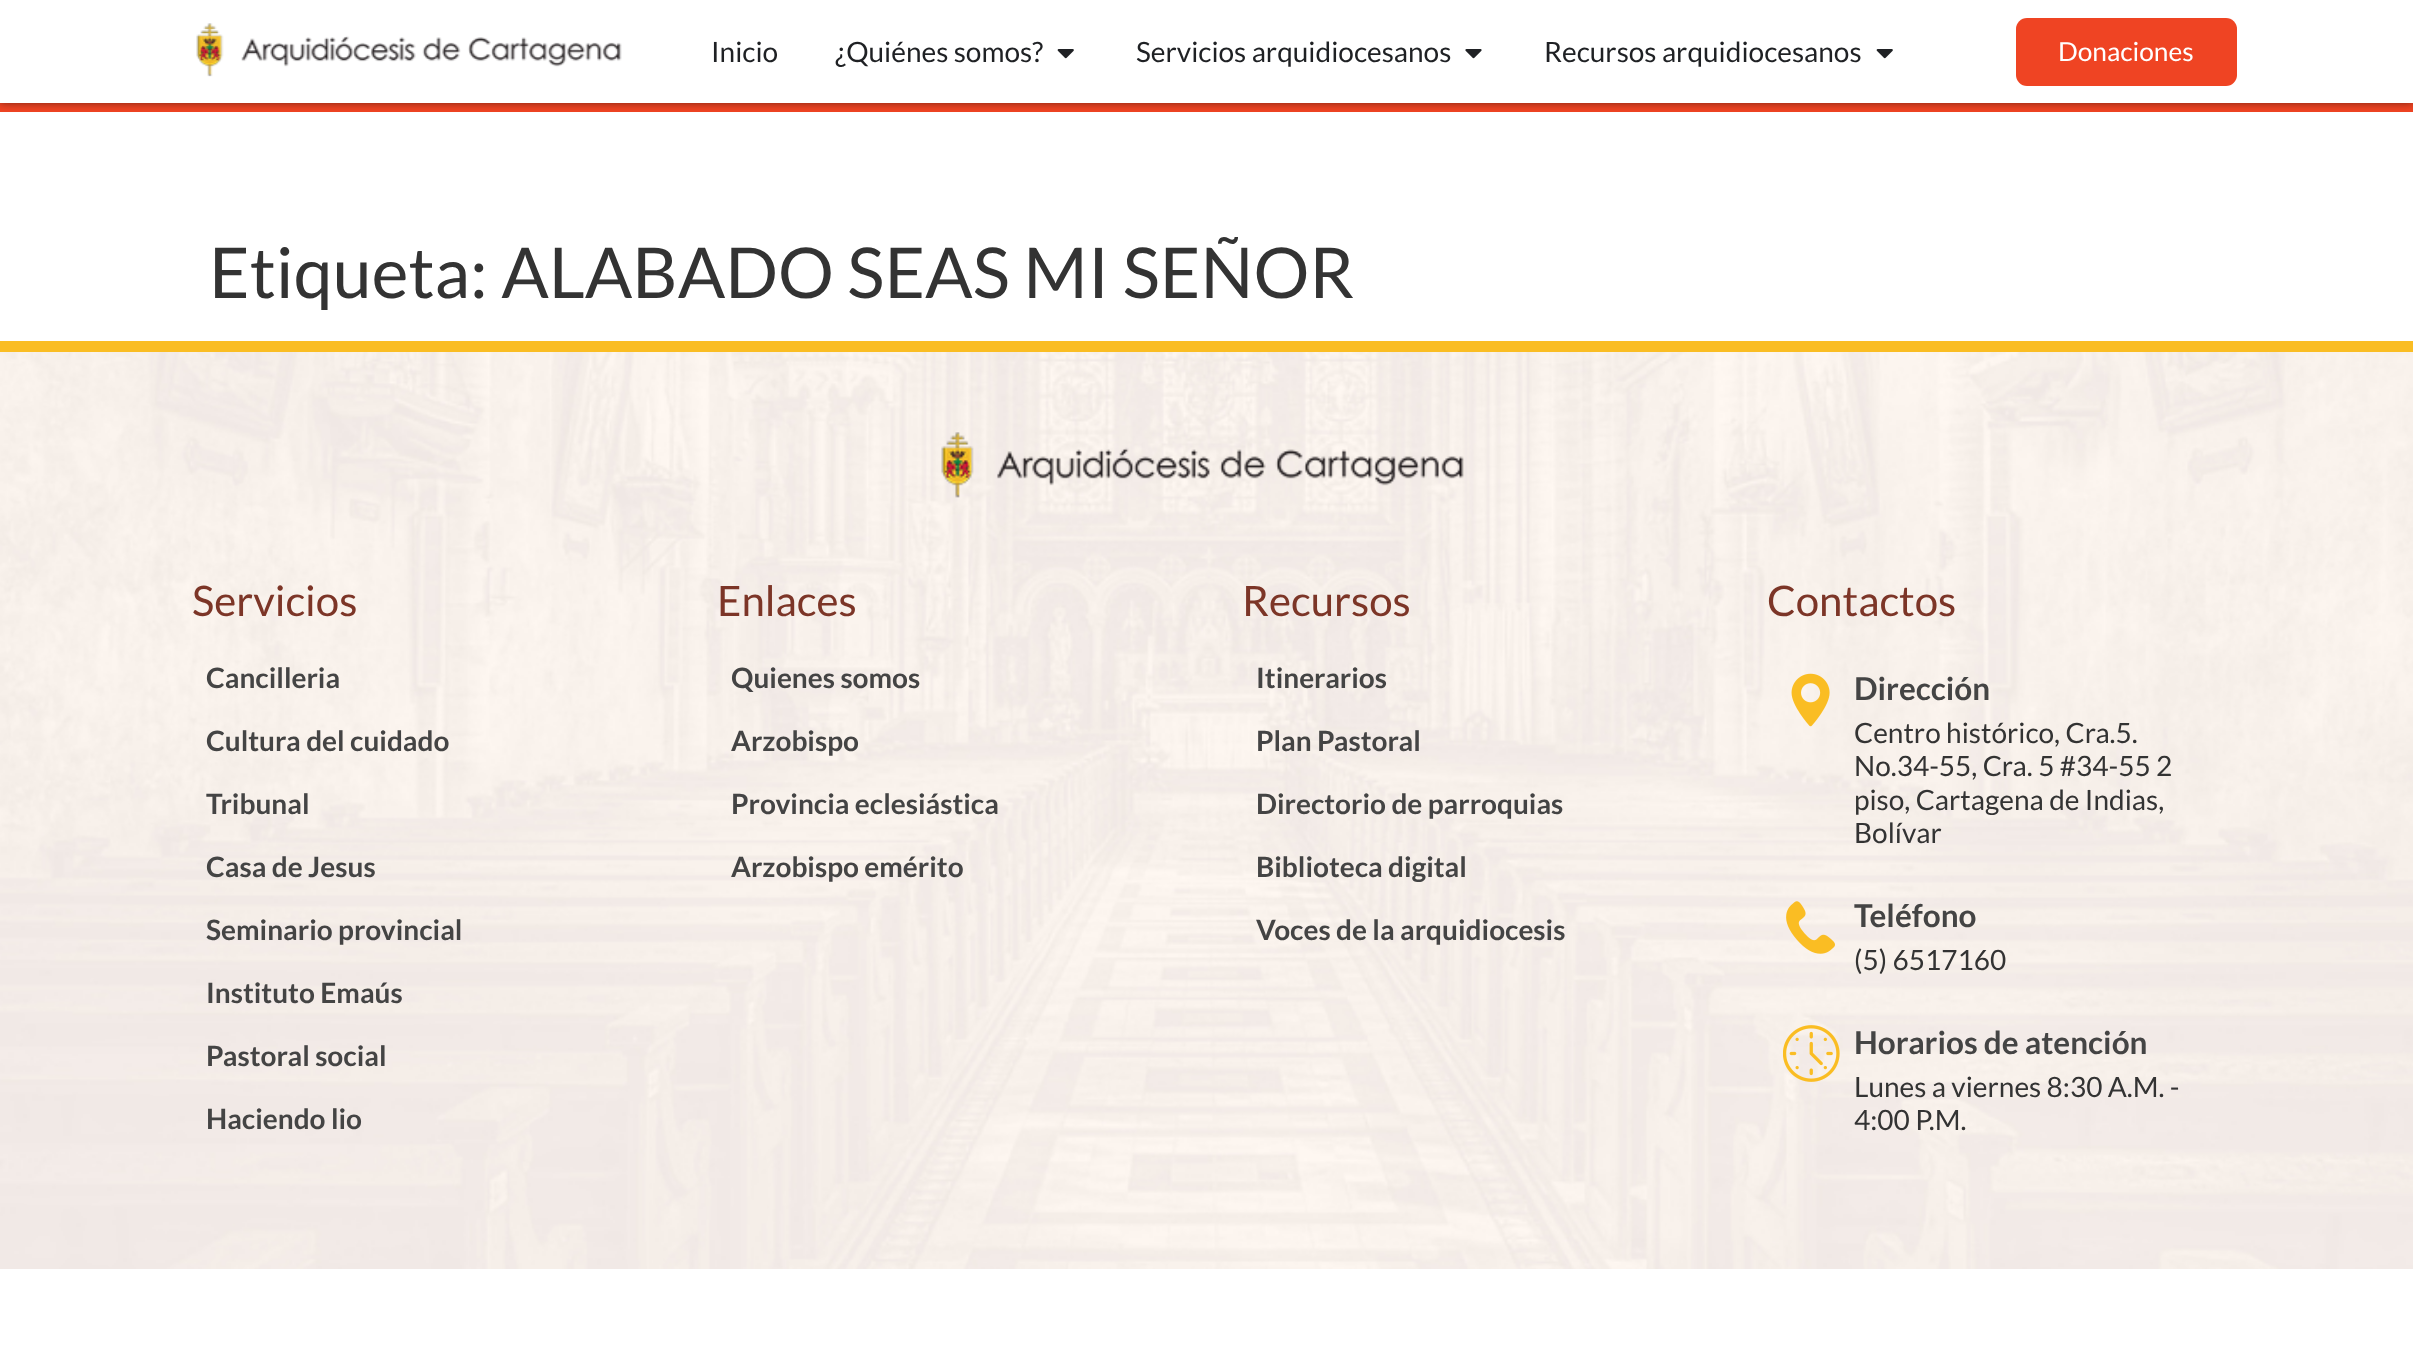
async function draw(canvas) {
  canvas.width = 2413;
  canvas.height = 1363;
  const ctx = canvas.getContext('2d');
  ctx.miterLimit = 4;
  ctx.fontKerning = 'normal';
  function label(s, x, y, font, color) {
    ctx.font = font;
    ctx.fillStyle = color;
    ctx.fillText(s, x, y);
  }
  function rect(x, y, w, h, color) {
    ctx.fillStyle = color;
    ctx.fillRect(x, y, w, h);
  }
  function roundedRect(x, y, w, h, r, color) {
    ctx.fillStyle = color;
    ctx.beginPath();
    ctx.roundRect(x, y, w, h, r);
    ctx.fill();
  }
  async function image(src, x, y, w, h) {
    const img = new Image();
    img.src = src;
    await img.decode();
    ctx.drawImage(img, x, y, w, h);
  }

  rect(0, 0, 2413, 1363, '#fff');
  rect(0, 103, 2413, 9, '#ef4423');
  ctx.fillStyle = '#00000080';
  ctx.filter = 'blur(4.5px)';
  ctx.beginPath();
  ctx.rect(0, 0, 2413, 103);
  ctx.fill();
  ctx.filter = 'none';
  rect(0, 0, 2413, 103, '#fff');
  await image('assets/img1.png', 196, 23, 426, 54);
  label('Inicio', 711, 62, '28px Lato', '#1f2124');
  label('¿Quiénes somos?', 835, 62, '28px Lato', '#1f2124');
  await image('assets/img2.png', 1057, 49, 17, 10);
  label('Servicios arquidiocesanos', 1136, 62, '28px Lato', '#1f2124');
  await image('assets/img3.png', 1465, 49, 17, 10);
  label('Recursos arquidiocesanos', 1544, 62, '28px Lato', '#1f2124');
  await image('assets/img2.png', 1876, 49, 17, 10);
  roundedRect(2016, 18, 221, 68, 11, '#ef4423');
  label('Donaciones', 2058, 61, '26.25px Lato', '#fff');
  label('Etiqueta: ALABADO SEAS MI SEÑOR', 209, 298, '70px Lato', '#333');
  await image('assets/img4.png', 0, 352, 2413, 917);
  rect(0, 341, 2413, 11, '#fabd23');
  await image('assets/img5.png', 941, 432, 523, 66);
  label('Servicios', 192, 616, '42px Lato', '#7c3527');
  label('Cancilleria', 206, 688, 'bold 28px Lato', '#444');
  label('Cultura del cuidado', 206, 751, 'bold 28px Lato', '#444');
  label('Tribunal', 206, 814, 'bold 28px Lato', '#444');
  label('Casa de Jesus', 206, 877, 'bold 28px Lato', '#444');
  label('Seminario provincial', 206, 940, 'bold 28px Lato', '#444');
  label('Instituto Emaús', 206, 1003, 'bold 28px Lato', '#444');
  label('Pastoral social', 206, 1066, 'bold 28px Lato', '#444');
  label('Haciendo lio', 206, 1129, 'bold 28px Lato', '#444');
  label('Enlaces', 717, 616, '42px Lato', '#7c3527');
  label('Quienes somos', 731, 688, 'bold 28px Lato', '#444');
  label('Arzobispo', 731, 751, 'bold 28px Lato', '#444');
  label('Provincia eclesiástica', 731, 814, 'bold 28px Lato', '#444');
  label('Arzobispo emérito', 731, 877, 'bold 28px Lato', '#444');
  label('Recursos', 1242, 616, '42px Lato', '#7c3527');
  label('Itinerarios', 1256, 688, 'bold 28px Lato', '#444');
  label('Plan Pastoral', 1256, 751, 'bold 28px Lato', '#444');
  label('Directorio de parroquias', 1256, 814, 'bold 28px Lato', '#444');
  label('Biblioteca digital', 1256, 877, 'bold 28px Lato', '#444');
  label('Voces de la arquidiocesis', 1256, 940, 'bold 28px Lato', '#444');
  label('Contactos', 1767, 616, '42px Lato', '#7c3527');
  await image('assets/img6.png', 1791, 673, 39, 54);
  label('Dirección', 1854, 700, 'bold 31.5px Lato', '#444');
  label('Centro histórico, Cra.5.', 1854, 743, '28px Lato', '#333');
  label('No.34-55, Cra. 5 #34-55 2', 1854, 776, '28px Lato', '#333');
  label('piso, Cartagena de Indias,', 1854, 810, '28px Lato', '#333');
  label('Bolívar', 1854, 843, '28px Lato', '#333');
  await image('assets/img7.png', 1786, 901, 49, 53);
  label('Teléfono', 1854, 927, 'bold 31.5px Lato', '#444');
  label('(5) 6517160', 1854, 970, '28px Lato', '#333');
  await image('assets/img8.png', 1783, 1025, 57, 57);
  label('Horarios de atención', 1854, 1054, 'bold 31.5px Lato', '#444');
  label('Lunes a viernes 8:30 A.M. -', 1854, 1097, '28px Lato', '#333');
  label('4:00 P.M.', 1854, 1130, '28px Lato', '#333');
}

draw(document.querySelector('canvas'));
